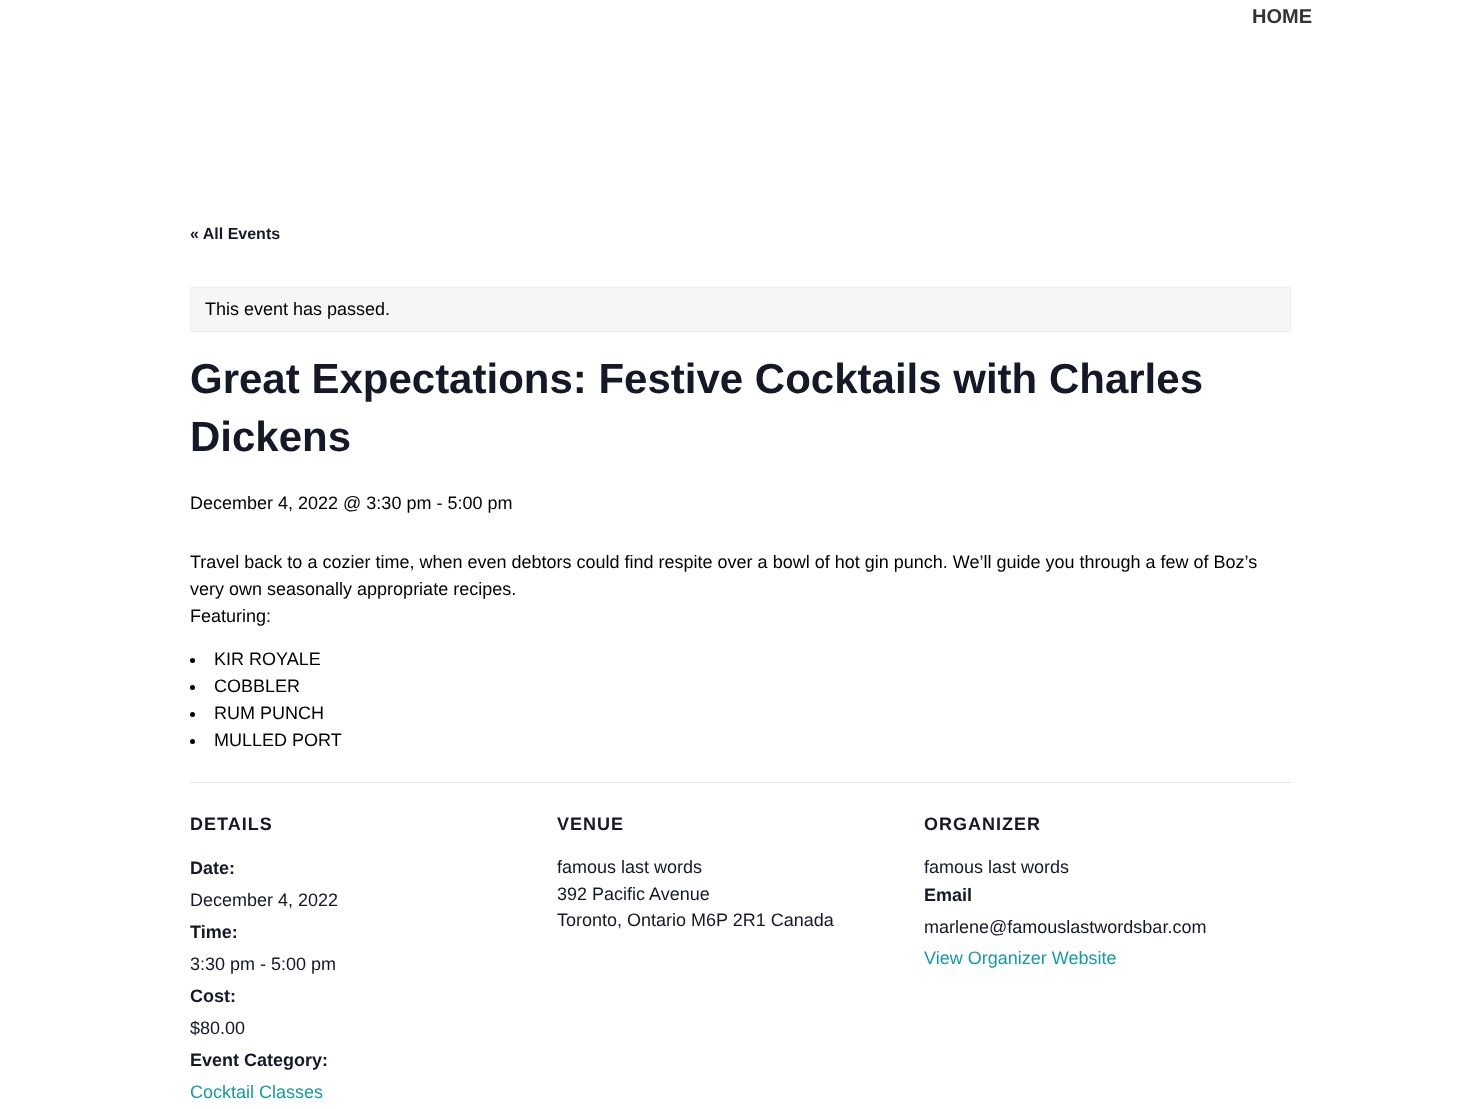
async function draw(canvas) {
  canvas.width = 1481;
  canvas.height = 1109;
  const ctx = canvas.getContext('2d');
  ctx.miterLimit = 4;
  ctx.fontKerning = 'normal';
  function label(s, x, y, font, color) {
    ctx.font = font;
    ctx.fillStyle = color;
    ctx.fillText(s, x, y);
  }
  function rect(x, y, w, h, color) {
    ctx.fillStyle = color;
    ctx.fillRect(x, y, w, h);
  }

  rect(0, 0, 1481, 1109, '#fff');
  label('HOME', 1252, 23, 'bold 20px Liberation Sans', '#333');
  label('« All Events', 190, 239, 'bold 16px Liberation Sans', '#141827');
  ctx.fillStyle = '#f6f6f6';
  ctx.beginPath();
  ctx.rect(190.5, 287.5, 1100, 44);
  ctx.fill();
  ctx.strokeStyle = '#eee';
  ctx.stroke();
  label('This event has passed.', 205, 315, '18px Liberation Sans', '#000');
  label('Great Expectations: Festive Cocktails with Charles', 190, 393, 'bold 42px Liberation Sans', '#141827');
  label('Dickens', 190, 451, 'bold 42px Liberation Sans', '#141827');
  label('December 4, 2022 @ 3:30 pm - 5:00 pm', 190, 509, '18px Liberation Sans', '#000');
  label('Travel back to a cozier time, when even debtors could find respite over a bowl of hot gin punch. We’ll guide you through a few of Boz’s', 190, 568, '18px Liberation Sans', '#000');
  label('very own seasonally appropriate recipes.', 190, 595, '18px Liberation Sans', '#000');
  label('Featuring:', 190, 622, '18px Liberation Sans', '#000');
  ctx.beginPath();
  ctx.arc(192.5, 660.5, 2.5, 0, 2 * Math.PI);
  ctx.fill();
  label('KIR ROYALE', 214, 665, '18px Liberation Sans', '#000');
  ctx.beginPath();
  ctx.arc(192.5, 687.5, 2.5, 0, 2 * Math.PI);
  ctx.fill();
  label('COBBLER', 214, 692, '18px Liberation Sans', '#000');
  ctx.beginPath();
  ctx.arc(192.5, 714.5, 2.5, 0, 2 * Math.PI);
  ctx.fill();
  label('RUM PUNCH', 214, 719, '18px Liberation Sans', '#000');
  ctx.beginPath();
  ctx.arc(192.5, 741.5, 2.5, 0, 2 * Math.PI);
  ctx.fill();
  label('MULLED PORT', 214, 746, '18px Liberation Sans', '#000');
  rect(190, 782, 1101, 1, '#e4e4e4');
  ctx.letterSpacing = '1px';
  label('DETAILS', 190, 830, 'bold 18px Liberation Sans', '#141827');
  ctx.letterSpacing = '0px';
  label('Date:', 190, 874, 'bold 18px Liberation Sans', '#141827');
  label('December 4, 2022', 190, 906, '18px Liberation Sans', '#141827');
  label('Time:', 190, 938, 'bold 18px Liberation Sans', '#141827');
  label('3:30 pm - 5:00 pm', 190, 970, '18px Liberation Sans', '#141827');
  label('Cost:', 190, 1002, 'bold 18px Liberation Sans', '#141827');
  label('$80.00', 190, 1034, '18px Liberation Sans', '#141827');
  label('Event Category:', 190, 1066, 'bold 18px Liberation Sans', '#141827');
  label('Cocktail Classes', 190, 1098, '18px Liberation Sans', '#169aa7');
  ctx.letterSpacing = '1px';
  label('VENUE', 557, 830, 'bold 18px Liberation Sans', '#141827');
  ctx.letterSpacing = '0px';
  label('famous last words', 557, 873, '18px Liberation Sans', '#141827');
  label('392 Pacific Avenue', 557, 900, '18px Liberation Sans', '#141827');
  label('Toronto, Ontario M6P 2R1 Canada', 557, 926, '18px Liberation Sans', '#141827');
  ctx.letterSpacing = '1px';
  label('ORGANIZER', 924, 830, 'bold 18px Liberation Sans', '#141827');
  ctx.letterSpacing = '0px';
  label('famous last words', 924, 873, '18px Liberation Sans', '#141827');
  label('Email', 924, 901, 'bold 18px Liberation Sans', '#141827');
  label('marlene@famouslastwordsbar.com', 924, 933, '18px Liberation Sans', '#141827');
  label('View Organizer Website', 924, 964, '18px Liberation Sans', '#169aa7');
}

draw(document.querySelector('canvas'));
